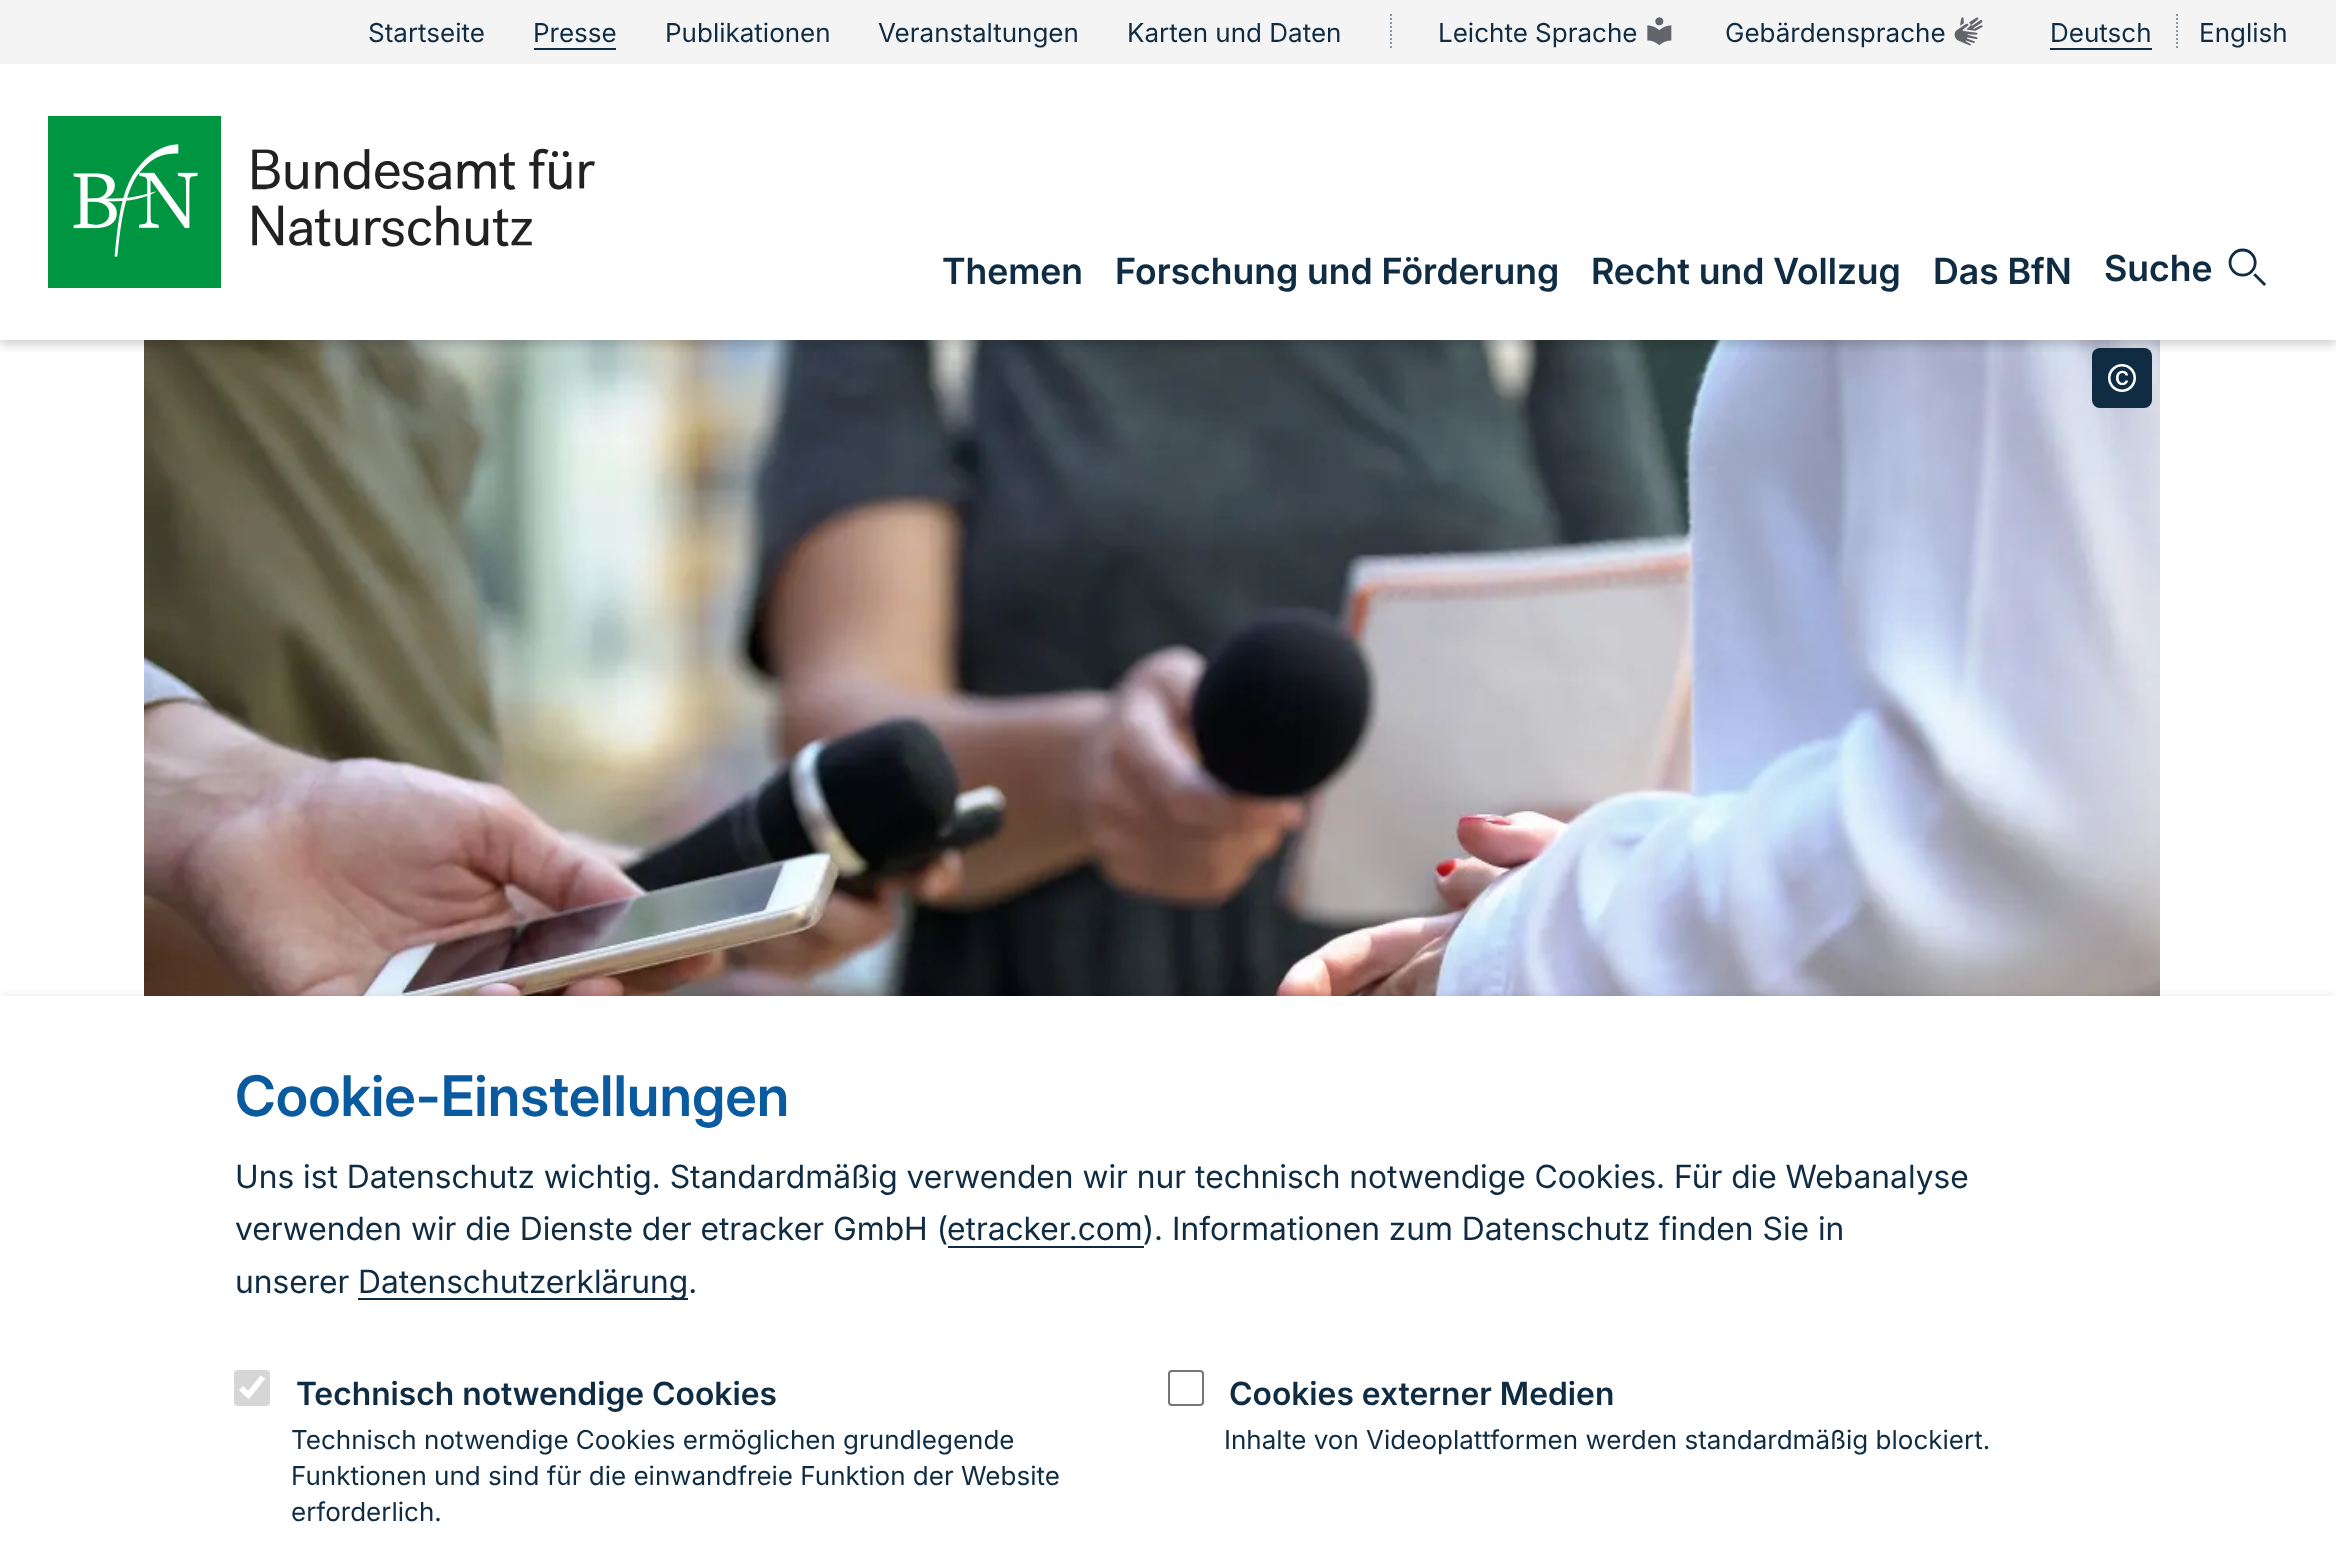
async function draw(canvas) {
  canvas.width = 2336;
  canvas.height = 1546;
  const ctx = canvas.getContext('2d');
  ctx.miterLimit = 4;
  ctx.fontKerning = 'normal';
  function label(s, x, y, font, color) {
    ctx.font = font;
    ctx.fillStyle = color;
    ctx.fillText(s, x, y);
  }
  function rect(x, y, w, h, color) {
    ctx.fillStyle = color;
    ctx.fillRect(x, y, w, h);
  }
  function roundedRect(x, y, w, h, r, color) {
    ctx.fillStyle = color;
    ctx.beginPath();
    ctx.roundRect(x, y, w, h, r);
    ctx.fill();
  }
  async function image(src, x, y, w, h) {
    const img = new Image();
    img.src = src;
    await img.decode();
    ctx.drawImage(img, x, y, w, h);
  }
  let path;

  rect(0, 0, 2336, 1546, '#fff');
  await image('assets/img6.png', 144, 340, 2016, 656);
  roundedRect(2092, 348, 60, 60, 8, '#102c43');
  ctx.save();
  ctx.beginPath();
  ctx.rect(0, 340, 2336, 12);
  ctx.clip();
  ctx.fillStyle = '#00000033';
  ctx.filter = 'blur(6px)';
  ctx.beginPath();
  ctx.rect(0, 4, 2336, 340);
  ctx.fill();
  ctx.filter = 'none';
  ctx.restore();
  rect(0, 0, 2336, 64, '#f4f4f4');
  label('Startseite', 368, 42, '26px Inter', '#102c43');
  label('Presse', 533, 42, '26px Inter', '#102c43');
  rect(534, 48, 82, 2, '#102c43');
  label('Publikationen', 665, 42, '26px Inter', '#102c43');
  label('Veranstaltungen', 878, 42, '26px Inter', '#102c43');
  label('Karten und Daten', 1127, 42, '26px Inter', '#102c43');
  await image('assets/img1.png', 1390, 14, 2, 34);
  label('Leichte Sprache', 1438, 42, '26px Inter', '#102c43');
  await image('assets/img2.png', 1647, 17, 25, 29);
  label('Gebärdensprache', 1725, 42, '26px Inter', '#102c43');
  await image('assets/img3.png', 1954, 17, 29, 29);
  label('Deutsch', 2050, 42, '26px Inter', '#102c43');
  rect(2050, 48, 102, 2, '#102c43');
  await image('assets/img1.png', 2176, 14, 2, 34);
  label('English', 2199, 42, '26px Inter', '#102c43');
  await image('assets/img4.png', 48, 116, 547, 172);
  label('Themen', 942, 284, '600 36px Inter', '#102c43');
  label('Forschung und Förderung', 1115, 284, '600 36px Inter', '#102c43');
  label('Recht und Vollzug', 1591, 284, '600 36px Inter', '#102c43');
  label('Das BfN', 1933, 284, '600 36px Inter', '#102c43');
  label('Suche', 2104, 281, '600 36px Inter', '#102c43');
  await image('assets/img5.png', 2228, 248, 38, 38);
  await image('assets/img7.png', 2108, 364, 28, 28);
  ctx.fillStyle = '#00000033';
  ctx.filter = 'blur(6px)';
  ctx.beginPath();
  ctx.rect(0, 1000, 2336, 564);
  ctx.fill();
  ctx.filter = 'none';
  rect(0, 996, 2336, 550, '#fff');
  label('Cookie-Einstellungen', 235, 1116, '600 56px "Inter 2"', '#0a5aa0');
  label('Uns ist Datenschutz wichtig. Standardmäßig verwenden wir nur technisch notwendige Cookies. Für die Webanalyse', 235, 1188, '32px "Inter 2"', '#102c43');
  label('verwenden wir die Dienste der etracker GmbH (', 235, 1240, '32px "Inter 2"', '#102c43');
  label('etracker.com). Informationen zum Datenschutz finden Sie in', 947, 1240, '32px "Inter 2"', '#102c43');
  rect(948, 1246, 196, 2, '#102c43');
  label('unserer', 235, 1293, '32px "Inter 2"', '#102c43');
  rect(358, 1298, 330, 2, '#102c43');
  label('Datenschutzerklärung.', 358, 1293, '32px "Inter 2"', '#102c43');
  roundedRect(234, 1370, 36, 36, 4, '#d6d6d6');
  path = new Path2D('M241 1388L248.5 1395L263 1377');
  ctx.strokeStyle = '#fff';
  ctx.lineWidth = 5.8;
  ctx.stroke(path);
  label('Technisch notwendige Cookies', 296, 1405, '600 32px "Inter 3"', '#102c43');
  label('Technisch notwendige Cookies ermöglichen grundlegende', 291, 1449, '26px Inter', '#102c43');
  label('Funktionen und sind für die einwandfreie Funktion der Website', 291, 1485, '26px Inter', '#102c43');
  label('erforderlich.', 291, 1521, '26px Inter', '#102c43');
  ctx.beginPath();
  ctx.roundRect(1169, 1371, 34, 34, 3);
  ctx.strokeStyle = '#767676';
  ctx.lineWidth = 2;
  ctx.stroke();
  label('Cookies externer Medien', 1229, 1405, '600 32px "Inter 3"', '#102c43');
  label('Inhalte von Videoplattformen werden standardmäßig blockiert.', 1224, 1449, '26px Inter', '#102c43');
}

draw(document.querySelector('canvas'));
